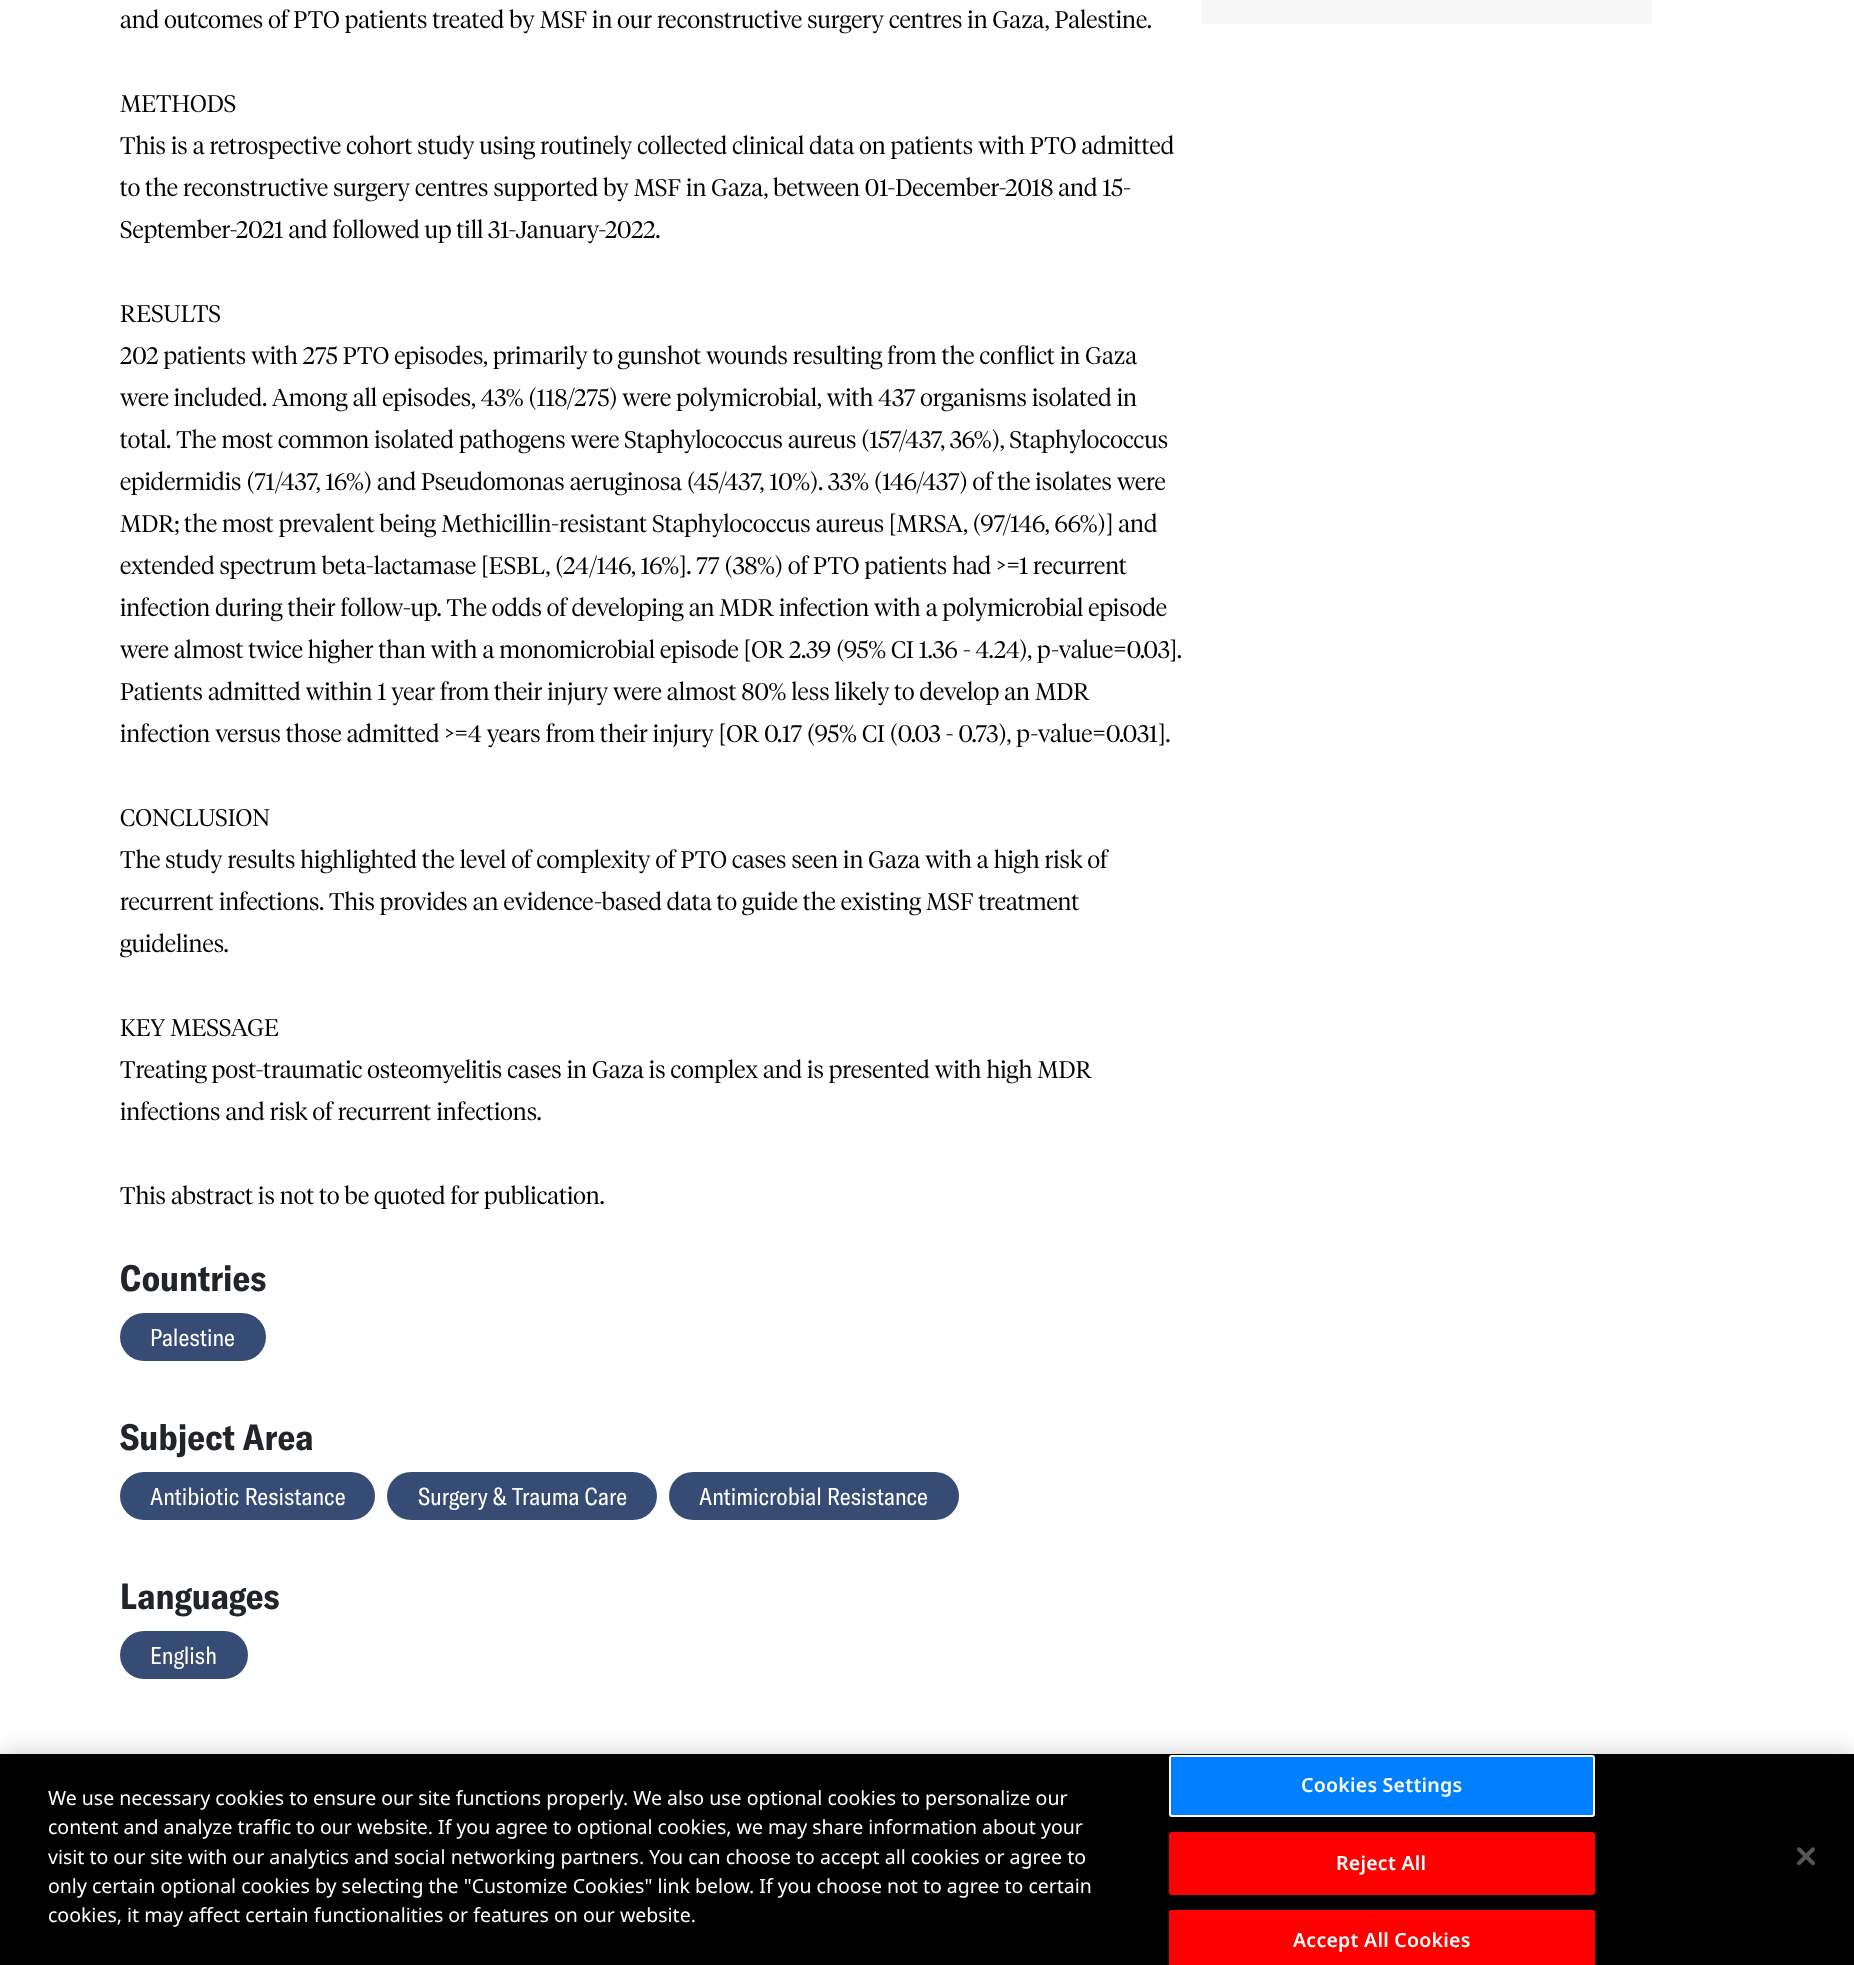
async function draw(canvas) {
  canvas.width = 1854;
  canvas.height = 1965;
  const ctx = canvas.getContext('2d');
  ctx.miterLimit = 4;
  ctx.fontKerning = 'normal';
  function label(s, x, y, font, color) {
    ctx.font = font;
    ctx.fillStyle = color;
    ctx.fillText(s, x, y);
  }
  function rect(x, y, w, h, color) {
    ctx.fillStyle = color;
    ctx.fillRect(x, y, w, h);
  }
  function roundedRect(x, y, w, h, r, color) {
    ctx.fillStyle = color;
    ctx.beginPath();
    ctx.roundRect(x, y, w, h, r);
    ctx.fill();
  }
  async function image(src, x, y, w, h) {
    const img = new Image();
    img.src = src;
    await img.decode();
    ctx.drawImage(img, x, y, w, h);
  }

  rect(0, 0, 1854, 1965, '#fff');
  label('and outcomes of PTO patients treated by MSF in our reconstructive surgery centres in Gaza, Palestine.', 120, 28, '300 24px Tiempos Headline', '#000');
  label('METHODS', 120, 112, '300 24px Tiempos Headline', '#000');
  label('This is a retrospective cohort study using routinely collected clinical data on patients with PTO admitted', 120, 154, '300 24px Tiempos Headline', '#000');
  label('to the reconstructive surgery centres supported by MSF in Gaza, between 01-December-2018 and 15-', 120, 196, '300 24px Tiempos Headline', '#000');
  label('September-2021 and followed up till 31-January-2022.', 120, 238, '300 24px Tiempos Headline', '#000');
  label('RESULTS', 120, 322, '300 24px Tiempos Headline', '#000');
  label('202 patients with 275 PTO episodes, primarily to gunshot wounds resulting from the conflict in Gaza', 120, 364, '300 24px Tiempos Headline', '#000');
  label('were included. Among all episodes, 43% (118/275) were polymicrobial, with 437 organisms isolated in', 120, 406, '300 24px Tiempos Headline', '#000');
  label('total. The most common isolated pathogens were Staphylococcus aureus (157/437, 36%), Staphylococcus', 120, 448, '300 24px Tiempos Headline', '#000');
  label('epidermidis (71/437, 16%) and Pseudomonas aeruginosa (45/437, 10%). 33% (146/437) of the isolates were', 120, 490, '300 24px Tiempos Headline', '#000');
  label('MDR; the most prevalent being Methicillin-resistant Staphylococcus aureus [MRSA, (97/146, 66%)] and', 120, 532, '300 24px Tiempos Headline', '#000');
  label('extended spectrum beta-lactamase [ESBL, (24/146, 16%]. 77 (38%) of PTO patients had >=1 recurrent', 120, 574, '300 24px Tiempos Headline', '#000');
  label('infection during their follow-up. The odds of developing an MDR infection with a polymicrobial episode', 120, 616, '300 24px Tiempos Headline', '#000');
  label('were almost twice higher than with a monomicrobial episode [OR 2.39 (95% CI 1.36 - 4.24), p-value=0.03].', 120, 658, '300 24px Tiempos Headline', '#000');
  label('Patients admitted within 1 year from their injury were almost 80% less likely to develop an MDR', 120, 700, '300 24px Tiempos Headline', '#000');
  label('infection versus those admitted >=4 years from their injury [OR 0.17 (95% CI (0.03 - 0.73), p-value=0.031].', 120, 742, '300 24px Tiempos Headline', '#000');
  label('CONCLUSION', 120, 826, '300 24px Tiempos Headline', '#000');
  label('The study results highlighted the level of complexity of PTO cases seen in Gaza with a high risk of', 120, 868, '300 24px Tiempos Headline', '#000');
  label('recurrent infections. This provides an evidence-based data to guide the existing MSF treatment', 120, 910, '300 24px Tiempos Headline', '#000');
  label('guidelines.', 120, 952, '300 24px Tiempos Headline', '#000');
  label('KEY MESSAGE', 120, 1036, '300 24px Tiempos Headline', '#000');
  label('Treating post-traumatic osteomyelitis cases in Gaza is complex and is presented with high MDR', 120, 1078, '300 24px Tiempos Headline', '#000');
  label('infections and risk of recurrent infections.', 120, 1120, '300 24px Tiempos Headline', '#000');
  label('This abstract is not to be quoted for publication.', 120, 1204, '300 24px Tiempos Headline', '#000');
  label('Countries', 120, 1291, 'bold 36px GT America', '#212529');
  roundedRect(120, 1313, 146, 48, 24, '#374c75');
  label('Palestine', 150, 1346, '24px GT America', '#fff');
  label('Subject Area', 120, 1450, 'bold 36px GT America', '#212529');
  roundedRect(120, 1472, 255, 48, 24, '#374c75');
  label('Antibiotic Resistance', 150, 1505, '24px GT America', '#fff');
  roundedRect(387, 1472, 270, 48, 24, '#374c75');
  label('Surgery & Trauma Care', 418, 1505, '24px GT America', '#fff');
  roundedRect(669, 1472, 290, 48, 24, '#374c75');
  label('Antimicrobial Resistance', 699, 1505, '24px GT America', '#fff');
  label('Languages', 120, 1609, 'bold 36px GT America', '#212529');
  roundedRect(120, 1631, 128, 48, 24, '#374c75');
  label('English', 150, 1664, '24px GT America', '#fff');
  rect(1202, 0, 450, 24, '#f6f6f6');
  ctx.fillStyle = '#00000033';
  ctx.filter = 'blur(13.5px)';
  ctx.beginPath();
  ctx.rect(0, 1754, 1854, 211);
  ctx.fill();
  ctx.filter = 'none';
  rect(0, 1754, 1854, 211, '#000');
  label('We use necessary cookies to ensure our site functions properly. We also use optional cookies to personalize our', 48, 1805, '19.5px Noto Sans', '#fff');
  label('content and analyze traffic to our website. If you agree to optional cookies, we may share information about your', 48, 1834, '19.5px Noto Sans', '#fff');
  label('visit to our site with our analytics and social networking partners. You can choose to accept all cookies or agree to', 48, 1864, '19.5px Noto Sans', '#fff');
  label('only certain optional cookies by selecting the "Customize Cookies" link below. If you choose not to agree to certain', 48, 1893, '19.5px Noto Sans', '#fff');
  label('cookies, it may affect certain functionalities or features on our website.', 48, 1922, '19.5px Noto Sans', '#fff');
  ctx.fillStyle = '#0080ff';
  ctx.beginPath();
  ctx.roundRect(1170, 1756, 424, 60, 2);
  ctx.fill();
  ctx.strokeStyle = '#fff';
  ctx.lineWidth = 2;
  ctx.stroke();
  ctx.letterSpacing = '0.25px';
  label('Cookies Settings', 1301, 1792, '600 19.5px Noto Sans', '#fff');
  ctx.fillStyle = '#f00';
  ctx.beginPath();
  ctx.roundRect(1170, 1833, 424, 61, 2);
  ctx.fill();
  ctx.strokeStyle = '#f00';
  ctx.stroke();
  label('Reject All', 1336, 1870, '600 19.5px Noto Sans', '#fff');
  ctx.fillStyle = '#f00';
  ctx.beginPath();
  ctx.roundRect(1169, 1910, 426, 55, [3, 3, 0, 0]);
  ctx.fill();
  ctx.beginPath();
  ctx.roundRect(1170, 1911, 424, 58, 2);
  ctx.stroke();
  label('Accept All Cookies', 1293, 1947, '600 19.5px Noto Sans', '#fff');
  await image('assets/img1.png', 1797, 1847, 18, 18);
}

draw(document.querySelector('canvas'));
